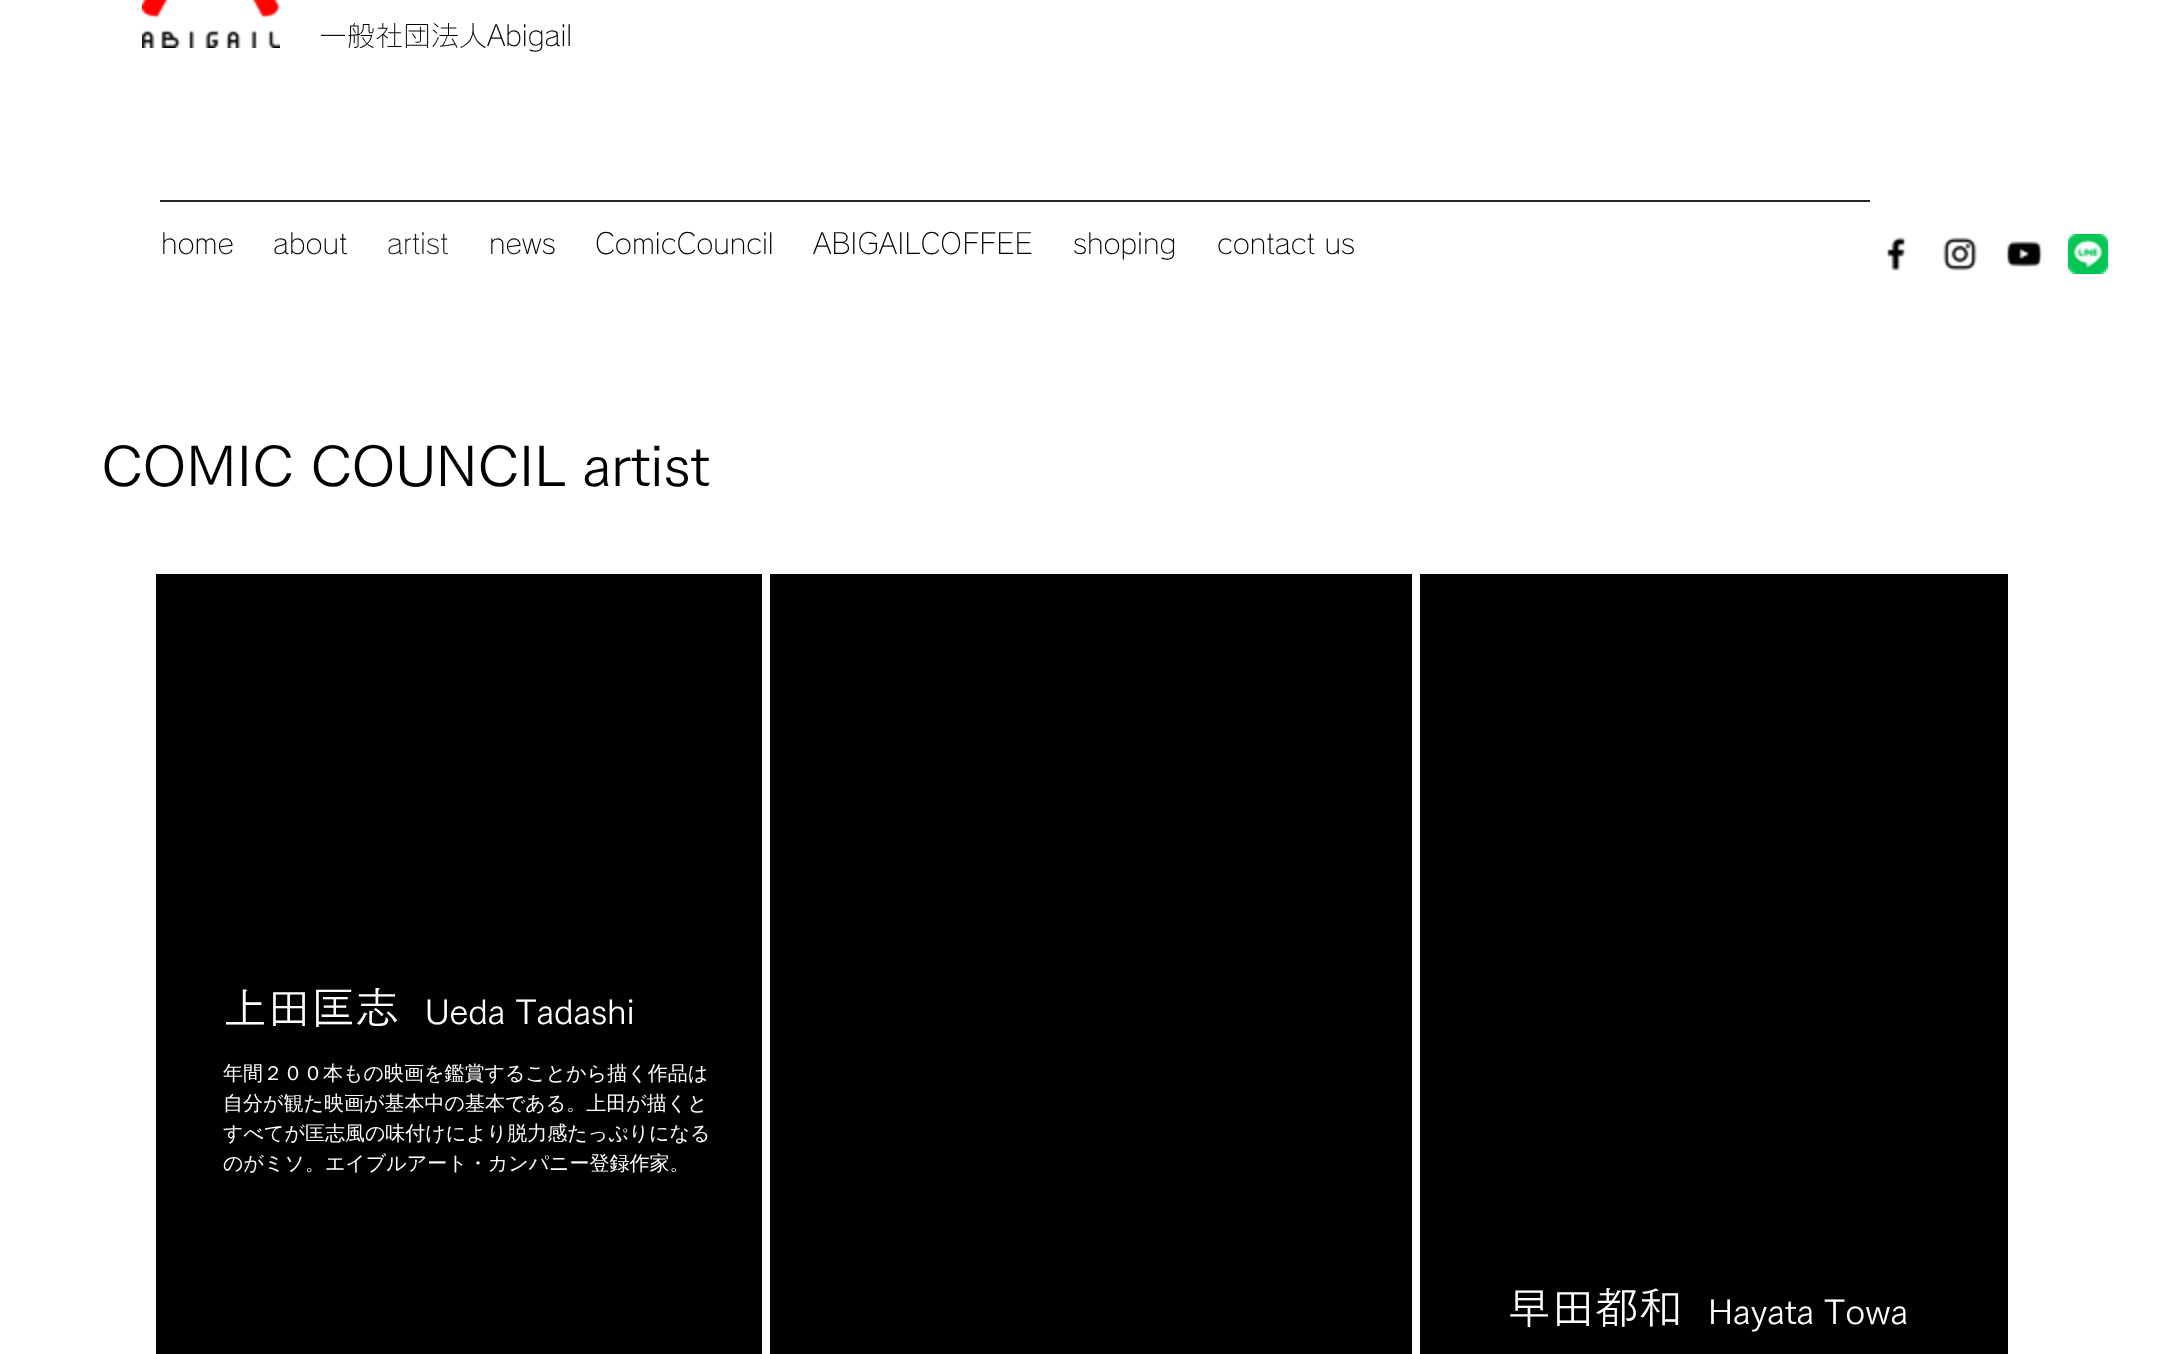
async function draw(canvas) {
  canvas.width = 2161;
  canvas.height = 1354;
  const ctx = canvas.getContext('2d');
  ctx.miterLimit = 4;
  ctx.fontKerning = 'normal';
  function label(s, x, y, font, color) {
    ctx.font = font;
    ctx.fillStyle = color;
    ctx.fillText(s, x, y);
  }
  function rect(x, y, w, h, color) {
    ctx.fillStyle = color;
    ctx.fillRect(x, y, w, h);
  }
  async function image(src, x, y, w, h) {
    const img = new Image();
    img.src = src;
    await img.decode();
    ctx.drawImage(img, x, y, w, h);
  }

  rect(0, 0, 2161, 1354, '#fff');
  await image('assets/img1.png', 142, 0, 138, 48);
  label('一般社団法人Abigail', 319, 46, '300 28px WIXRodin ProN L', '#000');
  rect(160, 200, 1710, 2, '#262626');
  label('home', 161, 254, '300 28px WIXRodin ProN L', '#000');
  label('about', 273, 254, '300 28px WIXRodin ProN L', '#000');
  label('artist', 387, 254, '300 28px WIXRodin ProN L', '#1a1a1a');
  label('news', 489, 254, '300 28px WIXRodin ProN L', '#000');
  label('ComicCouncil', 595, 254, '300 28px WIXRodin ProN L', '#000');
  label('ABIGAILCOFFEE', 813, 254, '300 28px WIXRodin ProN L', '#000');
  label('shoping', 1073, 254, '300 28px WIXRodin ProN L', '#000');
  label('contact us', 1217, 254, '300 28px WIXRodin ProN L', '#000');
  await image('assets/img2.png', 1887, 237, 19, 34);
  await image('assets/img3.png', 1943, 237, 34, 34);
  await image('assets/img4.png', 2006, 241, 37, 26);
  await image('assets/img5.png', 2068, 234, 40, 40);
  label('COMIC COUNCIL artist', 101, 486, '56px "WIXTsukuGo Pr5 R"', '#000');
  rect(156, 574, 606, 780, '#000');
  label('上田匡志', 223, 1024, '44px "WIXTsukuGo Pr5 R"', '#fff');
  label('Ueda Tadashi', 425, 1024, '34px "WIXTsukuGo Pr5 R"', '#fff');
  label('年間２００本もの映画を鑑賞することから描く作品は', 223, 1080, '500 20px WenQuanYi Zen Hei', '#fff');
  label('自分が観た映画が基本中の基本である。上田が描くと', 223, 1110, '500 20px WenQuanYi Zen Hei', '#fff');
  label('すべてが匡志風の味付けにより脱力感たっぷりになる', 223, 1140, '500 20px WenQuanYi Zen Hei', '#fff');
  label('のがミソ。エイブルアート・カンパニー登録作家。', 223, 1170, '500 20px WenQuanYi Zen Hei', '#fff');
  rect(770, 574, 642, 780, '#000');
  rect(1420, 574, 588, 780, '#000');
  label('早田都和', 1507, 1324, '44px "WIXTsukuGo Pr5 R"', '#fff');
  label('Hayata Towa', 1708, 1324, '34px "WIXTsukuGo Pr5 R"', '#fff');
}

draw(document.querySelector('canvas'));
